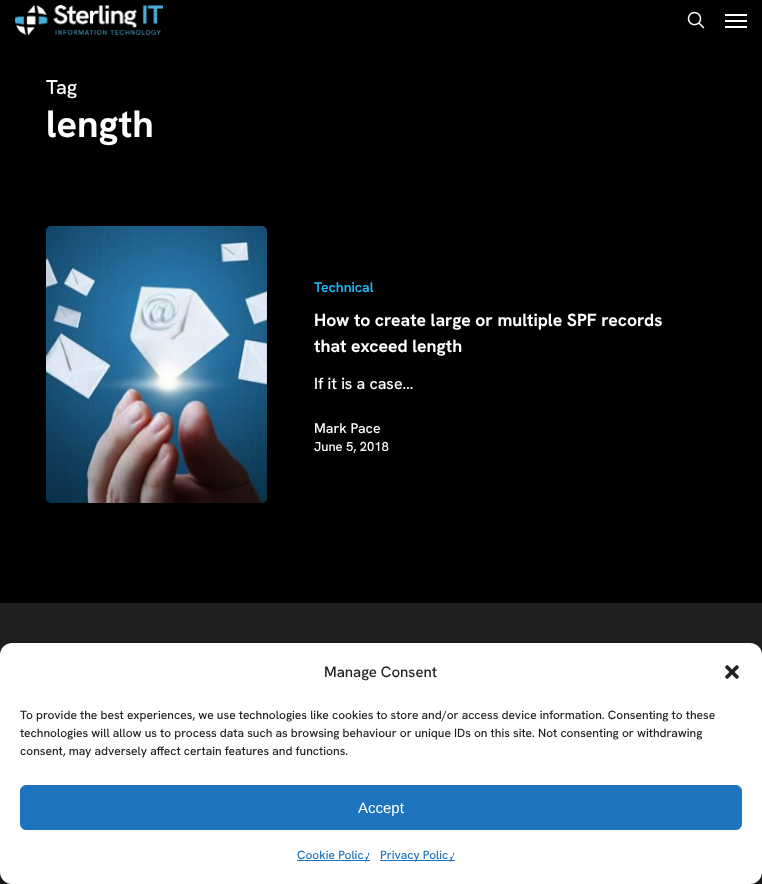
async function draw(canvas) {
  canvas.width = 762;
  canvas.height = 884;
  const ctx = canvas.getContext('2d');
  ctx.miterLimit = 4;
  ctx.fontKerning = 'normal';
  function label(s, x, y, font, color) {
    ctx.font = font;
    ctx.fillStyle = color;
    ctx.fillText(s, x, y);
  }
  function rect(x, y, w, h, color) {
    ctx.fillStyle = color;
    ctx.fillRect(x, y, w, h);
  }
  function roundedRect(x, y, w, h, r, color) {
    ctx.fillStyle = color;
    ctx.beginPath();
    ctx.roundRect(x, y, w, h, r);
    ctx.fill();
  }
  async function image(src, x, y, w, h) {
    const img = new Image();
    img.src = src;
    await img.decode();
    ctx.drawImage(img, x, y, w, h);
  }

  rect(0, 0, 762, 884, '#000');
  await image('assets/img1.png', 15, 5, 148, 30);
  await image('assets/img2.png', 687, 11, 18, 18);
  rect(725, 14, 22, 2, '#fff');
  rect(725, 26, 22, 2, '#fff');
  rect(725, 20, 22, 2, '#fff');
  label('Tag', 46, 94, '500 20px Hanken Grotesk', '#fff');
  label('length', 46, 137, 'bold 38px Hanken Grotesk', '#fff');
  await image('assets/img3.png', 46, 226, 221, 277);
  label('Technical', 314, 292, '600 14px Hanken Grotesk', '#2bf');
  label('How to create large or multiple SPF records', 314, 326, 'bold 17.6px Hanken Grotesk', '#fff');
  label('that exceed length', 314, 352, 'bold 17.6px Hanken Grotesk', '#fff');
  label('If it is a case…', 314, 389, '500 16px Hanken Grotesk', '#fff');
  label('Mark Pace', 314, 433, '500 14px Hanken Grotesk', '#fff');
  label('June 5, 2018', 314, 451, '500 13px Hanken Grotesk', '#fff');
  rect(0, 603, 762, 281, '#1f1f1f');
  ctx.fillStyle = '#a6a6a6';
  ctx.filter = 'blur(9px)';
  ctx.beginPath();
  ctx.roundRect(23, 667, 328, 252, 8);
  ctx.fill();
  ctx.filter = 'none';
  ctx.fillStyle = '#0000003b';
  ctx.filter = 'blur(3px)';
  ctx.beginPath();
  ctx.roundRect(0, 649, 762, 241, 12);
  ctx.fill();
  ctx.filter = 'none';
  ctx.fillStyle = '#00000030';
  ctx.filter = 'blur(10px)';
  ctx.beginPath();
  ctx.roundRect(0, 653, 762, 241, 12);
  ctx.fill();
  ctx.filter = 'none';
  roundedRect(0, 643, 762, 241, 12, '#fff');
  label('Manage Consent', 324, 677, '500 15px Hanken Grotesk', '#222');
  await image('assets/img4.png', 725, 665, 14, 14);
  label('To provide the best experiences, we use technologies like cookies to store and/or access device information. Consenting to these', 20, 719, '500 12px Hanken Grotesk', '#222');
  label('technologies will allow us to process data such as browsing behaviour or unique IDs on this site. Not consenting or withdrawing', 20, 737, '500 12px Hanken Grotesk', '#222');
  label('consent, may adversely affect certain features and functions.', 20, 755, '500 12px Hanken Grotesk', '#222');
  ctx.fillStyle = '#1e73be';
  ctx.beginPath();
  ctx.roundRect(20.5, 785.5, 721, 44, 5.5);
  ctx.fill();
  ctx.strokeStyle = '#1e73be';
  ctx.stroke();
  label('Accept', 358, 813, '15px Liberation Sans', '#fff');
  rect(297, 860, 73, 1, '#1e73be');
  label('Cookie Policy', 297, 859, '500 12px Hanken Grotesk', '#1e73be');
  ctx.fillStyle = '#fff';
  ctx.beginPath();
  ctx.arc(365.5, 854.5, 2.5, 0, 2 * Math.PI);
  ctx.fill();
  rect(380, 860, 75, 1, '#1e73be');
  label('Privacy Policy', 380, 859, '500 12px Hanken Grotesk', '#1e73be');
  ctx.fillStyle = '#fff';
  ctx.beginPath();
  ctx.arc(450.5, 854.5, 2.5, 0, 2 * Math.PI);
  ctx.fill();
}

draw(document.querySelector('canvas'));
